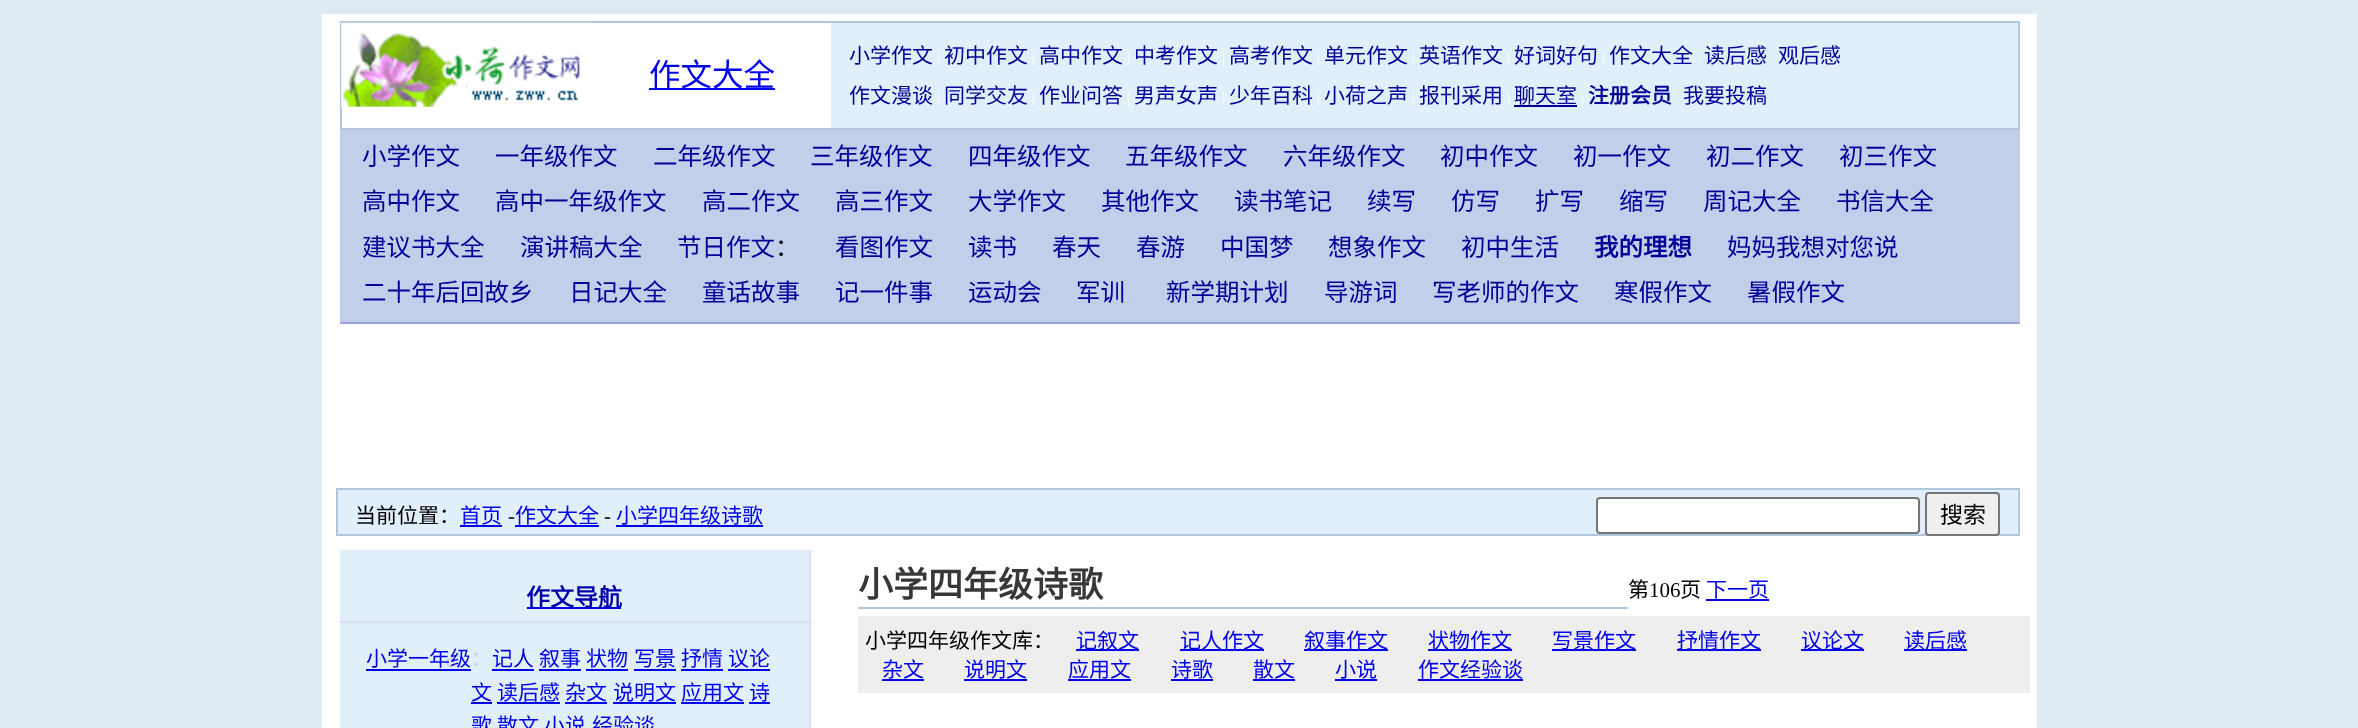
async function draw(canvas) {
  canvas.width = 2358;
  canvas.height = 728;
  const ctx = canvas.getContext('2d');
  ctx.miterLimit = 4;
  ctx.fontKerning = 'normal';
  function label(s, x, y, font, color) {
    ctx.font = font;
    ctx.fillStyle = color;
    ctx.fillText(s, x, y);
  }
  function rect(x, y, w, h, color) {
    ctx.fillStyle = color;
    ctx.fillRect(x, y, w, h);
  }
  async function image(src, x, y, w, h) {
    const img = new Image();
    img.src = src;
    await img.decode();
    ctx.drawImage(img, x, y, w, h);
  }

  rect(0, 0, 2358, 728, '#deebf3');
  rect(322, 14, 1715, 714, '#fff');
  ctx.strokeStyle = '#b0c7dd';
  ctx.lineWidth = 2;
  ctx.strokeRect(341, 22, 1678, 107);
  await image('assets/img1.png', 341, 22, 253, 85);
  rect(649, 88, 126, 2, '#00e');
  label('作文大全', 649, 86, '31.5px Noto Sans CJK SC', '#00e');
  rect(831, 23, 1187, 105, '#e1effb');
  label('小学作文', 849, 63, '21px Noto Sans CJK SC', '#009');
  label('|', 937, 63, '16px Liberation Serif', '#fff');
  label('初中作文', 944, 63, '21px Noto Sans CJK SC', '#009');
  label('|', 1032, 63, '16px Liberation Serif', '#fff');
  label('高中作文', 1039, 63, '21px Noto Sans CJK SC', '#009');
  label('|', 1127, 63, '16px Liberation Serif', '#fff');
  label('中考作文', 1134, 63, '21px Noto Sans CJK SC', '#009');
  label('|', 1222, 63, '16px Liberation Serif', '#fff');
  label('高考作文', 1229, 63, '21px Noto Sans CJK SC', '#009');
  label('|', 1317, 63, '16px Liberation Serif', '#fff');
  label('单元作文', 1324, 63, '21px Noto Sans CJK SC', '#009');
  label('|', 1412, 63, '16px Liberation Serif', '#fff');
  label('英语作文', 1419, 63, '21px Noto Sans CJK SC', '#009');
  label('|', 1507, 63, '16px Liberation Serif', '#fff');
  label('好词好句', 1514, 63, '21px Noto Sans CJK SC', '#009');
  label('|', 1602, 63, '16px Liberation Serif', '#fff');
  label('作文大全', 1609, 63, '21px Noto Sans CJK SC', '#009');
  label('读后感', 1704, 63, '21px Noto Sans CJK SC', '#009');
  label('观后感', 1778, 63, '21px Noto Sans CJK SC', '#009');
  label('作文漫谈', 849, 103, '21px Noto Sans CJK SC', '#009');
  label('|', 937, 103, '16px Liberation Serif', '#fff');
  label('同学交友', 944, 103, '21px Noto Sans CJK SC', '#009');
  label('|', 1032, 103, '16px Liberation Serif', '#fff');
  label('作业问答', 1039, 103, '21px Noto Sans CJK SC', '#009');
  label('|', 1127, 103, '16px Liberation Serif', '#fff');
  label('男声女声', 1134, 103, '21px Noto Sans CJK SC', '#009');
  label('|', 1222, 103, '16px Liberation Serif', '#fff');
  label('少年百科', 1229, 103, '21px Noto Sans CJK SC', '#009');
  label('|', 1317, 103, '16px Liberation Serif', '#fff');
  label('小荷之声', 1324, 103, '21px Noto Sans CJK SC', '#009');
  label('|', 1412, 103, '16px Liberation Serif', '#fff');
  label('报刊采用', 1419, 103, '21px Noto Sans CJK SC', '#009');
  label('|', 1507, 103, '16px Liberation Serif', '#fff');
  label('聊天室', 1514, 103, '21px Noto Sans CJK SC', '#009');
  rect(1514, 105, 63, 2, '#009');
  label('|', 1581, 103, '16px Liberation Serif', '#fff');
  label('注册会员', 1588, 103, 'bold 21px Noto Sans CJK SC', '#009');
  label('我要投稿', 1683, 103, '21px Noto Sans CJK SC', '#009');
  rect(340, 130, 1680, 192, '#c1cfeb');
  rect(340, 322, 1680, 2, '#a0a0e0');
  label('小学作文', 362, 165, '24.5px Noto Sans CJK SC', '#009');
  label('一年级作文', 495, 165, '24.5px Noto Sans CJK SC', '#009');
  label('二年级作文', 653, 165, '24.5px Noto Sans CJK SC', '#009');
  label('三年级作文', 810, 165, '24.5px Noto Sans CJK SC', '#009');
  label('四年级作文', 968, 165, '24.5px Noto Sans CJK SC', '#009');
  label('五年级作文', 1125, 165, '24.5px Noto Sans CJK SC', '#009');
  label('六年级作文', 1283, 165, '24.5px Noto Sans CJK SC', '#009');
  label('初中作文', 1440, 165, '24.5px Noto Sans CJK SC', '#009');
  label('初一作文', 1573, 165, '24.5px Noto Sans CJK SC', '#009');
  label('初二作文', 1706, 165, '24.5px Noto Sans CJK SC', '#009');
  label('初三作文', 1839, 165, '24.5px Noto Sans CJK SC', '#009');
  label('高中作文', 362, 210, '24.5px Noto Sans CJK SC', '#009');
  label('高中一年级作文', 495, 210, '24.5px Noto Sans CJK SC', '#009');
  label('高二作文', 702, 210, '24.5px Noto Sans CJK SC', '#009');
  label('高三作文', 835, 210, '24.5px Noto Sans CJK SC', '#009');
  label('大学作文', 968, 210, '24.5px Noto Sans CJK SC', '#009');
  label('其他作文', 1101, 210, '24.5px Noto Sans CJK SC', '#009');
  label('读书笔记', 1234, 210, '24.5px Noto Sans CJK SC', '#009');
  label('续写', 1367, 210, '24.5px Noto Sans CJK SC', '#009');
  label('仿写', 1451, 210, '24.5px Noto Sans CJK SC', '#009');
  label('扩写', 1535, 210, '24.5px Noto Sans CJK SC', '#009');
  label('缩写', 1619, 210, '24.5px Noto Sans CJK SC', '#009');
  label('周记大全', 1703, 210, '24.5px Noto Sans CJK SC', '#009');
  label('书信大全', 1836, 210, '24.5px Noto Sans CJK SC', '#009');
  label('建议书大全', 362, 256, '24.5px Noto Sans CJK SC', '#009');
  label('演讲稿大全', 520, 256, '24.5px Noto Sans CJK SC', '#009');
  label('节日作文', 677, 256, '24.5px Noto Sans CJK SC', '#009');
  label('：', 775, 256, '24.5px Noto Sans CJK SC', '#000');
  label('看图作文', 835, 256, '24.5px Noto Sans CJK SC', '#009');
  label('读书', 968, 256, '24.5px Noto Sans CJK SC', '#009');
  label('春天', 1052, 256, '24.5px Noto Sans CJK SC', '#009');
  label('春游', 1136, 256, '24.5px Noto Sans CJK SC', '#009');
  label('中国梦', 1220, 256, '24.5px Noto Sans CJK SC', '#009');
  label('想象作文', 1328, 256, '24.5px Noto Sans CJK SC', '#009');
  label('初中生活', 1461, 256, '24.5px Noto Sans CJK SC', '#009');
  label('我的理想', 1594, 256, 'bold 24.5px Noto Sans CJK SC', '#009');
  label('妈妈我想对您说', 1727, 256, '24.5px Noto Sans CJK SC', '#009');
  label('二十年后回故乡', 362, 301, '24.5px Noto Sans CJK SC', '#009');
  label('日记大全', 569, 301, '24.5px Noto Sans CJK SC', '#009');
  label('童话故事', 702, 301, '24.5px Noto Sans CJK SC', '#009');
  label('记一件事', 835, 301, '24.5px Noto Sans CJK SC', '#009');
  label('运动会', 968, 301, '24.5px Noto Sans CJK SC', '#009');
  label('军训', 1076, 301, '24.5px Noto Sans CJK SC', '#009');
  label('新学期计划', 1166, 301, '24.5px Noto Sans CJK SC', '#009');
  label('导游词', 1324, 301, '24.5px Noto Sans CJK SC', '#009');
  label('写老师的作文', 1432, 301, '24.5px Noto Sans CJK SC', '#009');
  label('寒假作文', 1614, 301, '24.5px Noto Sans CJK SC', '#009');
  label('暑假作文', 1747, 301, '24.5px Noto Sans CJK SC', '#009');
  ctx.fillStyle = '#e1effb';
  ctx.beginPath();
  ctx.rect(337, 489, 1682, 46);
  ctx.fill();
  ctx.stroke();
  label('当前位置：', 355, 523, '21px Noto Sans CJK SC', '#000');
  label('首页', 460, 523, '21px Noto Sans CJK SC', '#00e');
  rect(460, 525, 42, 2, '#00e');
  label('-', 508, 523, '21px Liberation Serif', '#000');
  label('作文大全', 515, 523, '21px Noto Sans CJK SC', '#00e');
  rect(515, 525, 84, 2, '#00e');
  label('-', 604, 523, '21px Liberation Serif', '#000');
  label('小学四年级诗歌', 616, 523, '21px Noto Sans CJK SC', '#00e');
  rect(616, 525, 147, 2, '#00e');
  ctx.fillStyle = '#fff';
  ctx.beginPath();
  ctx.roundRect(1597, 498, 322, 35, 3);
  ctx.fill();
  ctx.strokeStyle = '#767676';
  ctx.stroke();
  ctx.fillStyle = '#efefef';
  ctx.beginPath();
  ctx.roundRect(1926, 493, 73, 42, 3);
  ctx.fill();
  ctx.stroke();
  label('搜索', 1940, 523, '23px Noto Sans CJK SC', '#000');
  rect(340, 550, 469, 178, '#e1effb');
  rect(809, 550, 2, 178, '#dedef3');
  rect(340, 621, 469, 2, '#dedef3');
  rect(527, 607, 94, 2, '#00e');
  label('作文导航', 526, 606, 'bold 24px Noto Sans CJK SC', '#00a');
  ctx.beginPath();
  ctx.arc(450.5, 662.5, 3.5, 0, 2 * Math.PI);
  ctx.strokeStyle = '#cce';
  ctx.stroke();
  label('小学一年级', 366, 666, '21px Noto Sans CJK SC', '#00e');
  rect(366, 669, 105, 2, '#00e');
  label('：', 471, 666, '21px Noto Sans CJK SC', '#cce');
  label('记人', 492, 666, '21px Noto Sans CJK SC', '#00e');
  rect(492, 669, 42, 2, '#00e');
  label('叙事', 539, 666, '21px Noto Sans CJK SC', '#00e');
  rect(539, 669, 42, 2, '#00e');
  label('状物', 586, 666, '21px Noto Sans CJK SC', '#00e');
  rect(586, 669, 42, 2, '#00e');
  label('写景', 634, 666, '21px Noto Sans CJK SC', '#00e');
  rect(634, 669, 42, 2, '#00e');
  label('抒情', 681, 666, '21px Noto Sans CJK SC', '#00e');
  rect(681, 669, 42, 2, '#00e');
  label('议论', 728, 666, '21px Noto Sans CJK SC', '#00e');
  rect(728, 669, 42, 2, '#00e');
  label('文', 471, 700, '21px Noto Sans CJK SC', '#00e');
  rect(471, 702, 21, 2, '#00e');
  label('读后感', 497, 700, '21px Noto Sans CJK SC', '#00e');
  rect(497, 702, 63, 2, '#00e');
  label('杂文', 565, 700, '21px Noto Sans CJK SC', '#00e');
  rect(565, 702, 42, 2, '#00e');
  label('说明文', 613, 700, '21px Noto Sans CJK SC', '#00e');
  rect(613, 702, 63, 2, '#00e');
  label('应用文', 681, 700, '21px Noto Sans CJK SC', '#00e');
  rect(681, 702, 63, 2, '#00e');
  label('诗', 749, 700, '21px Noto Sans CJK SC', '#00e');
  rect(749, 702, 21, 2, '#00e');
  label('歌', 471, 733, '21px Noto Sans CJK SC', '#00e');
  label('散文', 497, 733, '21px Noto Sans CJK SC', '#00e');
  label('小说', 544, 733, '21px Noto Sans CJK SC', '#00e');
  label('经验谈', 592, 733, '21px Noto Sans CJK SC', '#00e');
  rect(858, 607, 770, 2, '#b0c7dd');
  label('小学四年级诗歌', 858, 597, 'bold 35px Noto Sans CJK SC', '#363737');
  label('第', 1628, 597, '21px Noto Sans CJK SC', '#000');
  label('106', 1649, 597, '21px Liberation Serif', '#000');
  label('页', 1680, 597, '21px Noto Sans CJK SC', '#000');
  label('下一页', 1706, 597, '21px Noto Sans CJK SC', '#00e');
  rect(1706, 599, 63, 2, '#00e');
  rect(858, 616, 1172, 77, '#eeeeef');
  label('小学四年级作文库：', 865, 648, '21px Noto Sans CJK SC', '#000');
  rect(1076, 649, 63, 2, '#00e');
  label('记叙文', 1076, 648, '21px Noto Sans CJK SC', '#00e');
  rect(1180, 649, 84, 2, '#00e');
  label('记人作文', 1180, 648, '21px Noto Sans CJK SC', '#00e');
  rect(1304, 649, 84, 2, '#00e');
  label('叙事作文', 1304, 648, '21px Noto Sans CJK SC', '#00e');
  rect(1428, 649, 84, 2, '#00e');
  label('状物作文', 1428, 648, '21px Noto Sans CJK SC', '#00e');
  rect(1552, 649, 84, 2, '#00e');
  label('写景作文', 1552, 648, '21px Noto Sans CJK SC', '#00e');
  rect(1677, 649, 84, 2, '#00e');
  label('抒情作文', 1677, 648, '21px Noto Sans CJK SC', '#00e');
  rect(1801, 649, 63, 2, '#00e');
  label('议论文', 1801, 648, '21px Noto Sans CJK SC', '#00e');
  rect(1904, 649, 63, 2, '#00e');
  label('读后感', 1904, 648, '21px Noto Sans CJK SC', '#00e');
  label('杂文', 882, 677, '21px Noto Sans CJK SC', '#00e');
  rect(882, 679, 42, 2, '#00e');
  label('说明文', 964, 677, '21px Noto Sans CJK SC', '#00e');
  rect(964, 679, 63, 2, '#00e');
  label('应用文', 1068, 677, '21px Noto Sans CJK SC', '#00e');
  rect(1068, 679, 63, 2, '#00e');
  label('诗歌', 1171, 677, '21px Noto Sans CJK SC', '#00e');
  rect(1171, 679, 42, 2, '#00e');
  label('散文', 1253, 677, '21px Noto Sans CJK SC', '#00e');
  rect(1253, 679, 42, 2, '#00e');
  label('小说', 1335, 677, '21px Noto Sans CJK SC', '#00e');
  rect(1335, 679, 42, 2, '#00e');
  label('作文经验谈', 1418, 677, '21px Noto Sans CJK SC', '#00e');
  rect(1418, 679, 105, 2, '#00e');
}

draw(document.querySelector('canvas'));
